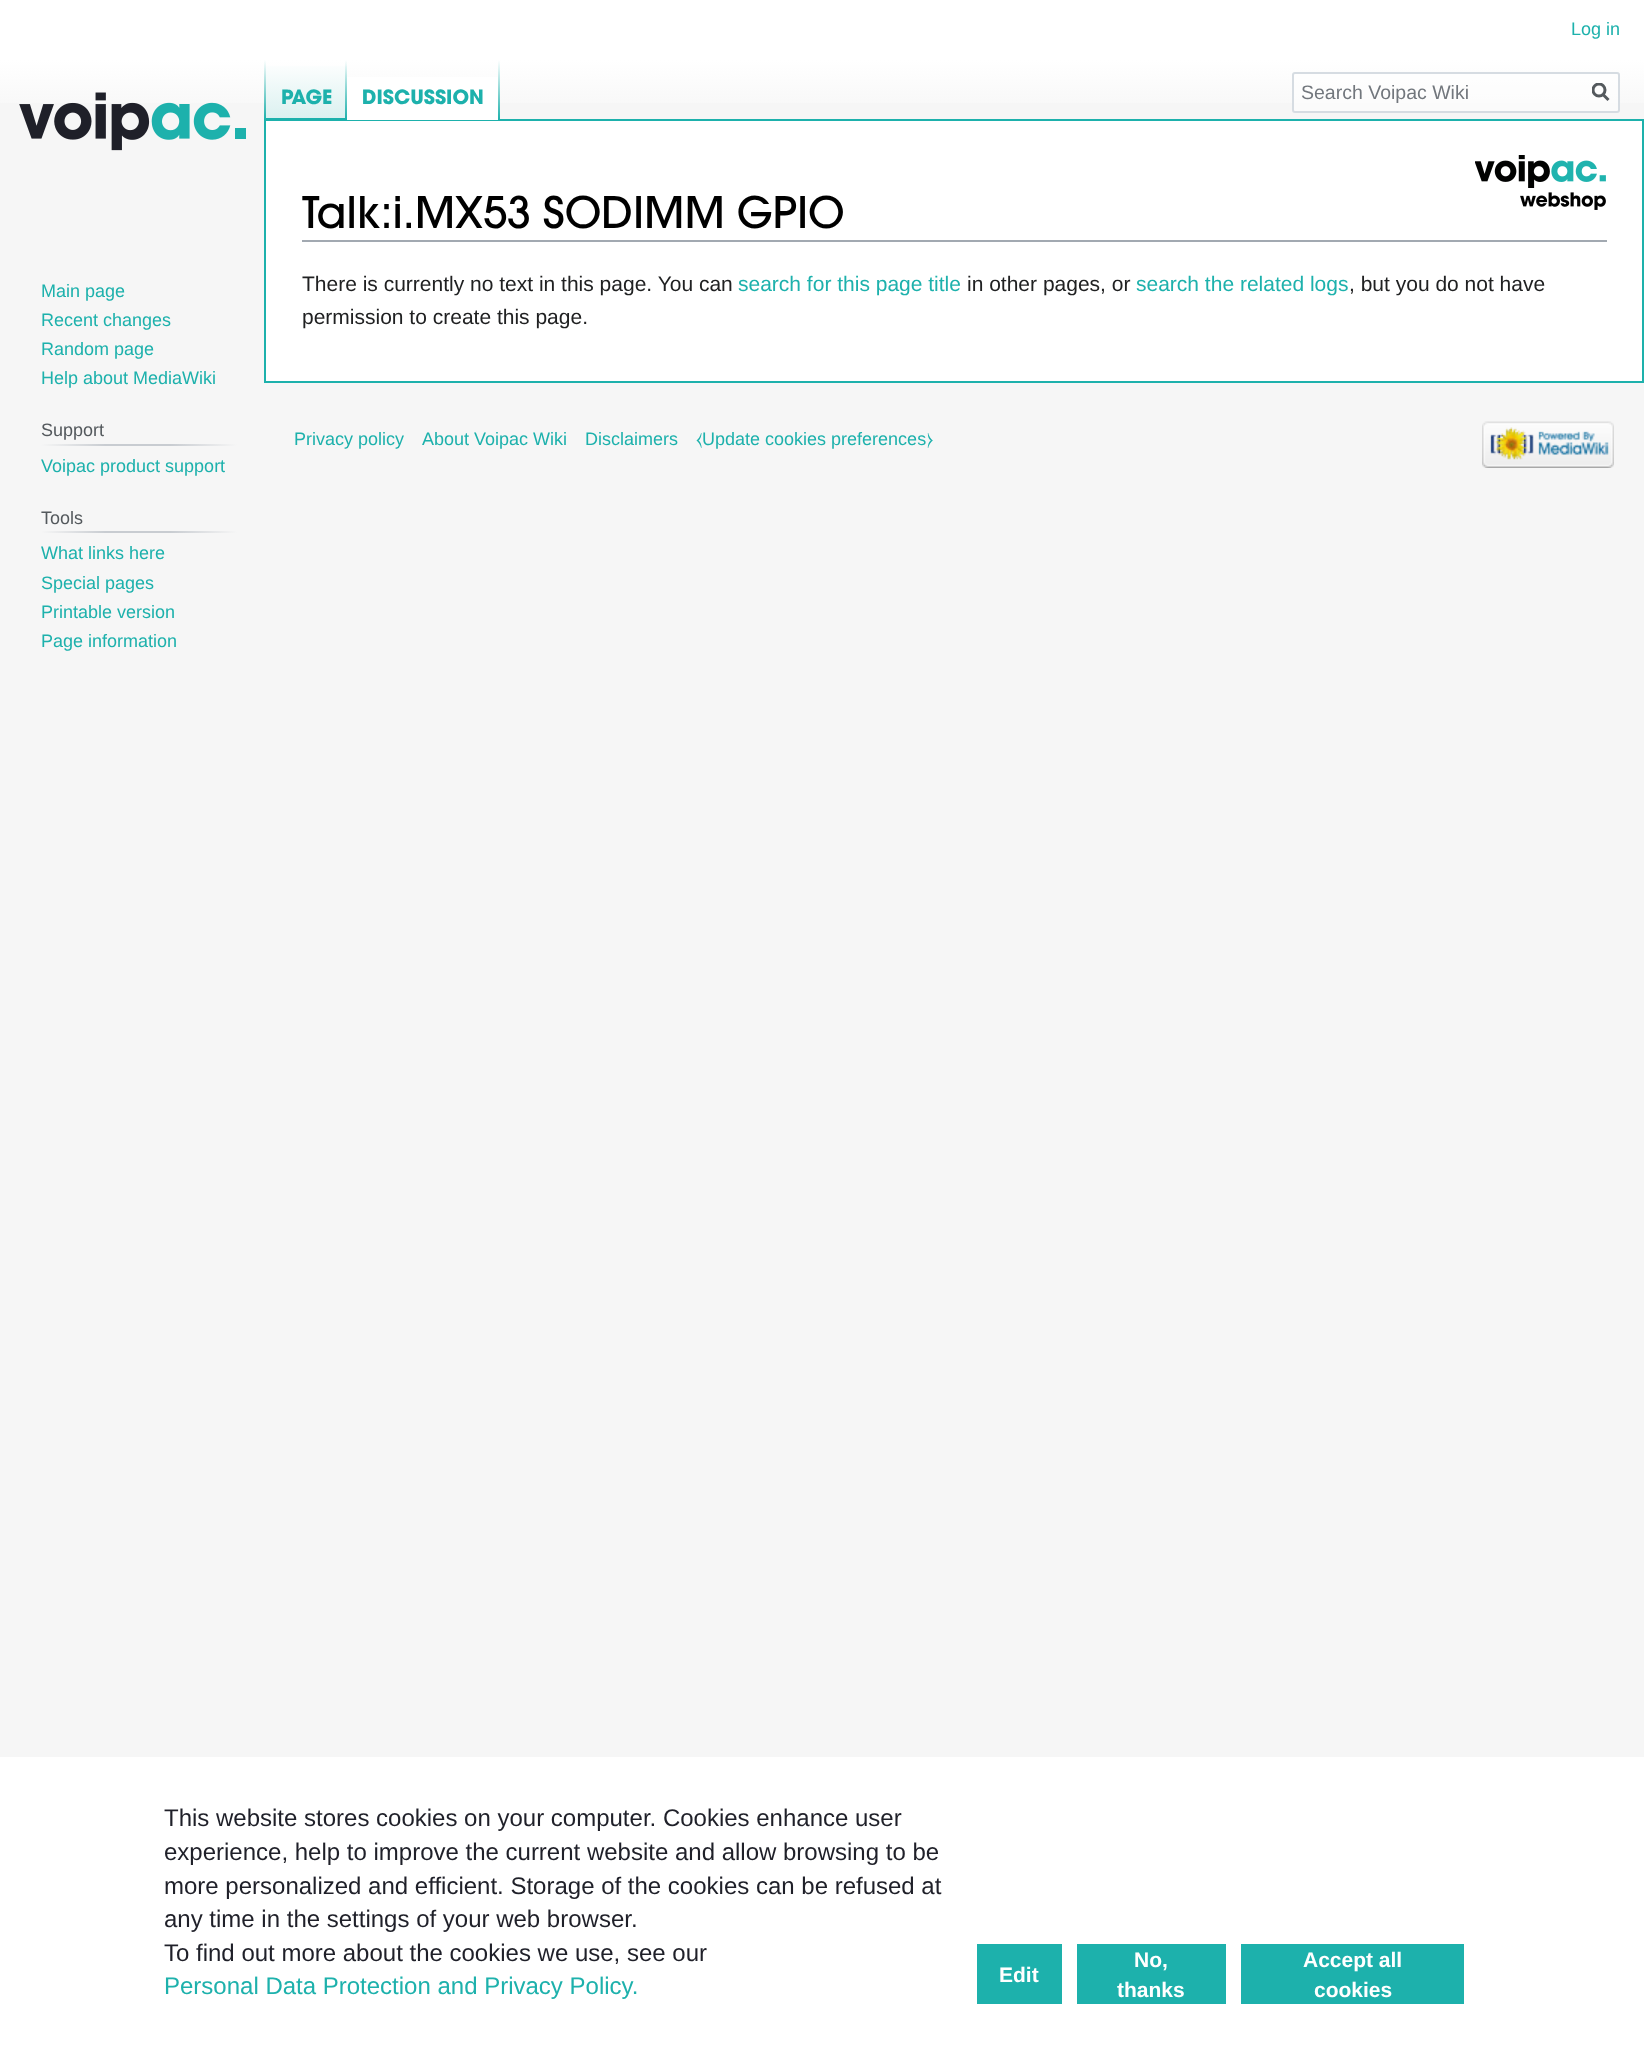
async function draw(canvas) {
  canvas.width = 1644;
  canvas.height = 2050;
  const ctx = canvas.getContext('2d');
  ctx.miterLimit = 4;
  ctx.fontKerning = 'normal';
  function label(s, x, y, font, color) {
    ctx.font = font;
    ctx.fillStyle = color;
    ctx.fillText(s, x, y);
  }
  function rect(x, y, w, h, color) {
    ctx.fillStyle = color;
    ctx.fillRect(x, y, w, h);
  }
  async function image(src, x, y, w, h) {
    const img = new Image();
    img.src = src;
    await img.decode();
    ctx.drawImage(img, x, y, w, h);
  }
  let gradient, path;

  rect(0, 0, 1644, 2050, '#f6f6f6');
  gradient = ctx.createLinearGradient(822, 0, 822, 120);
  gradient.addColorStop(0.5, '#fff');
  gradient.addColorStop(1, '#f6f6f6');
  ctx.fillStyle = gradient;
  ctx.fillRect(0, 0, 1644, 103);
  label('Log in', 1571, 35, '18px Liberation Sans', '#1db1ac');
  ctx.fillStyle = '#fff';
  ctx.beginPath();
  ctx.rect(265, 120, 1378, 262);
  ctx.fill();
  ctx.strokeStyle = '#1db1ac';
  ctx.lineWidth = 2;
  ctx.stroke();
  gradient = ctx.createLinearGradient(265, 60, 265, 120);
  gradient.addColorStop(0, '#1db1ac00');
  gradient.addColorStop(1, '#1db1ac');
  ctx.fillStyle = gradient;
  ctx.fillRect(264, 60, 2, 60);
  gradient = ctx.createLinearGradient(306, 120, 306, 60);
  gradient.addColorStop(0.03, '#1db1ac');
  gradient.addColorStop(0.03, '#dbf1f0');
  gradient.addColorStop(1, '#fff');
  ctx.fillStyle = gradient;
  ctx.fillRect(266, 66, 81, 53);
  gradient = ctx.createLinearGradient(346, 60, 346, 120);
  gradient.addColorStop(0, '#1db1ac00');
  gradient.addColorStop(1, '#1db1ac');
  ctx.fillStyle = gradient;
  ctx.fillRect(345, 60, 2, 60);
  label('PAGE', 281, 104, 'bold 19.5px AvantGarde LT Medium', '#1db1ac');
  rect(347, 77, 151, 43, '#fff');
  gradient = ctx.createLinearGradient(499, 60, 499, 120);
  gradient.addColorStop(0, '#fff');
  gradient.addColorStop(1, '#1db1ac');
  ctx.fillStyle = gradient;
  ctx.fillRect(498, 60, 2, 60);
  label('DISCUSSION', 362, 104, 'bold 19.5px AvantGarde LT Medium', '#1db1ac');
  ctx.fillStyle = '#ffffff80';
  ctx.beginPath();
  ctx.roundRect(1293, 73, 326, 39, 2);
  ctx.fill();
  ctx.strokeStyle = '#d6dce2';
  ctx.stroke();
  label('Search Voipac Wiki', 1301, 99, '19.5px Liberation Sans', '#72777d');
  path = new Path2D('M1608.5 100L1602.5 94');
  ctx.strokeStyle = '#54595d';
  ctx.lineWidth = 3;
  ctx.stroke(path);
  ctx.save();
  ctx.beginPath();
  ctx.rect(1592, 83, 18, 19);
  ctx.clip();
  ctx.beginPath();
  ctx.arc(1599, 90, 6, 0, 2 * Math.PI);
  ctx.stroke();
  ctx.restore();
  await image('assets/img1.png', 19, 92, 227, 59);
  label('Main page', 41, 297, '18px Liberation Sans', '#1db1ac');
  label('Recent changes', 41, 326, '18px Liberation Sans', '#1db1ac');
  label('Random page', 41, 355, '18px Liberation Sans', '#1db1ac');
  label('Help about MediaWiki', 41, 384, '18px Liberation Sans', '#1db1ac');
  gradient = ctx.createLinearGradient(41, 445, 237, 445);
  gradient.addColorStop(0, '#f6f6f6');
  gradient.addColorStop(0.33, '#c8ccd1');
  gradient.addColorStop(0.66, '#c8ccd1');
  gradient.addColorStop(1, '#f6f6f6');
  ctx.fillStyle = gradient;
  ctx.fillRect(41, 444, 196, 2);
  label('Support', 41, 436, '18px Liberation Sans', '#54595d');
  label('Voipac product support', 41, 472, '18px Liberation Sans', '#1db1ac');
  gradient = ctx.createLinearGradient(41, 532, 237, 532);
  gradient.addColorStop(0, '#f6f6f6');
  gradient.addColorStop(0.33, '#c8ccd1');
  gradient.addColorStop(0.66, '#c8ccd1');
  gradient.addColorStop(1, '#f6f6f6');
  ctx.fillStyle = gradient;
  ctx.fillRect(41, 531, 196, 2);
  label('Tools', 41, 524, '18px Liberation Sans', '#54595d');
  label('What links here', 41, 559, '18px Liberation Sans', '#1db1ac');
  label('Special pages', 41, 589, '18px Liberation Sans', '#1db1ac');
  label('Printable version', 41, 618, '18px Liberation Sans', '#1db1ac');
  label('Page information', 41, 647, '18px Liberation Sans', '#1db1ac');
  rect(302, 240, 1305, 2, '#a2a9b1');
  label('Talk:i.MX53 SODIMM GPIO', 302, 228, '500 43.25px AvantGarde LT Medium', '#000');
  await image('assets/img2.png', 1475, 155, 131, 55);
  label('There is currently no text in this page. You can', 302, 291, '21px Liberation Sans', '#202122');
  label('search for this page title', 738, 291, '21px Liberation Sans', '#1db1ac');
  label('in other pages, or', 967, 291, '21px Liberation Sans', '#202122');
  label('search the related logs', 1136, 291, '21px Liberation Sans', '#1db1ac');
  label(', but you do not have', 1349, 291, '21px Liberation Sans', '#202122');
  label('permission to create this page.', 302, 324, '21px Liberation Sans', '#202122');
  label('Privacy policy', 294, 445, '18px Liberation Sans', '#1db1ac');
  label('About Voipac Wiki', 422, 445, '18px Liberation Sans', '#1db1ac');
  label('Disclaimers', 585, 445, '18px Liberation Sans', '#1db1ac');
  label('⧼', 696, 445, '18px FreeSerif', '#1db1ac');
  label('Update cookies preferences', 702, 445, '18px Liberation Sans', '#1db1ac');
  label('⧽', 927, 445, '18px FreeSerif', '#1db1ac');
  await image('assets/img3.png', 1482, 421, 132, 47);
  rect(0, 1757, 1644, 293, '#fff');
  label('This website stores cookies on your computer. Cookies enhance user', 164, 1826, '24px Liberation Sans', '#1f2029');
  label('experience, help to improve the current website and allow browsing to be', 164, 1860, '24px Liberation Sans', '#1f2029');
  label('more personalized and efficient. Storage of the cookies can be refused at', 164, 1894, '24px Liberation Sans', '#1f2029');
  label('any time in the settings of your web browser.', 164, 1927, '24px Liberation Sans', '#1f2029');
  label('To find out more about the cookies we use, see our', 164, 1961, '24px Liberation Sans', '#1f2029');
  label('Personal Data Protection and Privacy Policy.', 164, 1994, '24px Liberation Sans', '#1db1ac');
  rect(977, 1944, 85, 60, '#1db1ac');
  label('Edit', 999, 1982, 'bold 21px Liberation Sans', '#fff');
  rect(1077, 1944, 149, 60, '#1db1ac');
  label('No,', 1134, 1967, 'bold 21px Liberation Sans', '#fff');
  label('thanks', 1117, 1997, 'bold 21px Liberation Sans', '#fff');
  rect(1241, 1944, 223, 60, '#1db1ac');
  label('Accept all', 1303, 1967, 'bold 21px Liberation Sans', '#fff');
  label('cookies', 1314, 1997, 'bold 21px Liberation Sans', '#fff');
}

draw(document.querySelector('canvas'));
